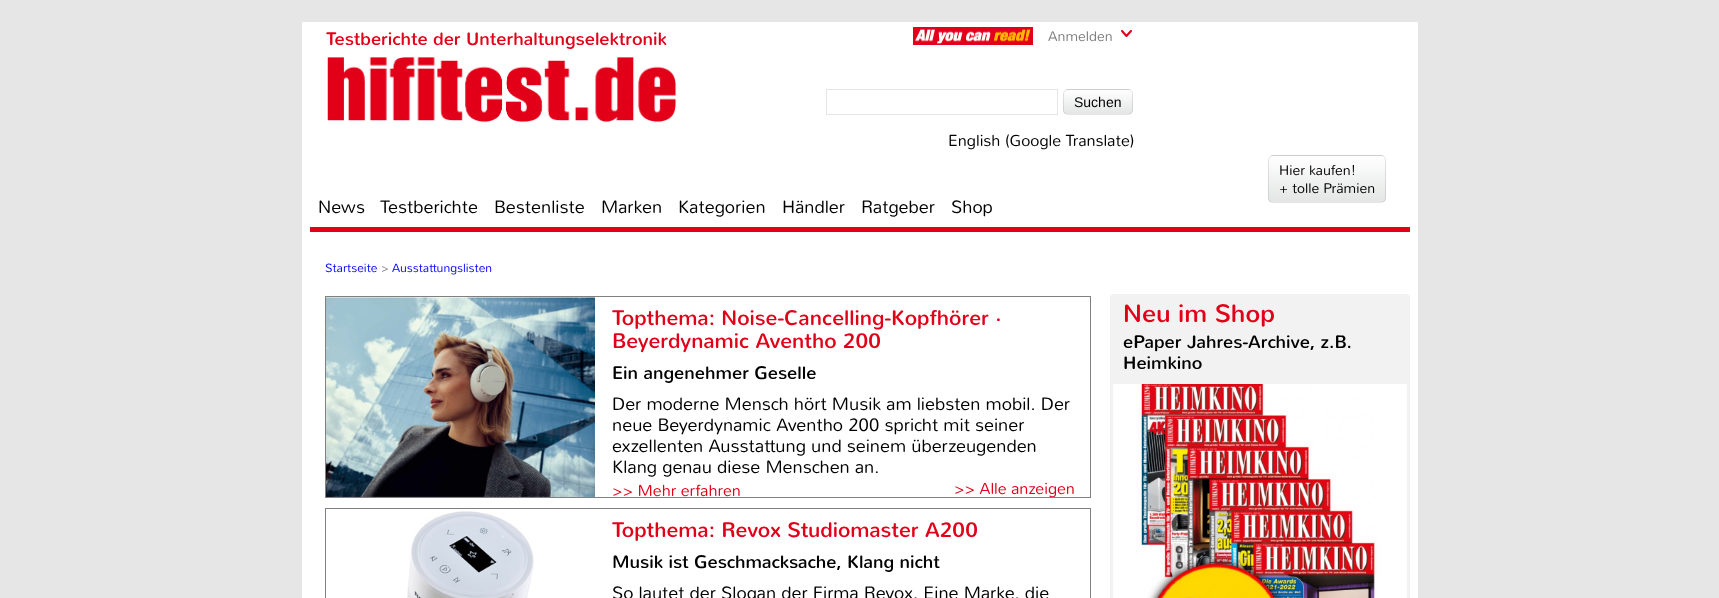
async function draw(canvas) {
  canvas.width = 1719;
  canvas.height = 598;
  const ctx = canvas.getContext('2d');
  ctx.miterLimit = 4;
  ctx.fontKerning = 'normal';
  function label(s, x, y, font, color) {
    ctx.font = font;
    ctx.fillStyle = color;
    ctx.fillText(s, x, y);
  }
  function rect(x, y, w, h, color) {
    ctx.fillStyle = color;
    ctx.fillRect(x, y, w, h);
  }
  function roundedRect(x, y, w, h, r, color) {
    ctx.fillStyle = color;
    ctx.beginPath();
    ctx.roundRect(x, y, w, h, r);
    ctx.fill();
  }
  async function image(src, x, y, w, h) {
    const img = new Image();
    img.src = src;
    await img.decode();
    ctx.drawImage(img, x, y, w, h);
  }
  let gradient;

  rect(0, 0, 1719, 598, '#e6e6e6');
  rect(302, 22, 1116, 576, '#fff');
  label('Testberichte der Unterhaltungselektronik', 326, 45, '18px Nunito', '#e20019');
  await image('assets/img1.png', 327, 57, 350, 66);
  await image('assets/img2.png', 913, 27, 120, 18);
  label('Anmelden', 1048, 41, '300 14px Nunito', '#808080');
  await image('assets/img3.png', 1121, 30, 11, 7);
  ctx.strokeStyle = '#e6e6e6';
  ctx.strokeRect(826.5, 89.5, 231, 25);
  ctx.save();
  ctx.beginPath();
  ctx.roundRect(1063, 89, 70, 26, 5);
  ctx.clip();
  gradient = ctx.createLinearGradient(1098, 66, 1098, 90);
  gradient.addColorStop(0, '#fff');
  gradient.addColorStop(1, '#e3e6e4');
  ctx.fillStyle = gradient;
  ctx.fillRect(1063, 89, 70, 1);
  gradient = ctx.createLinearGradient(1098, 90, 1098, 114);
  gradient.addColorStop(0, '#fff');
  gradient.addColorStop(1, '#e3e6e4');
  ctx.fillStyle = gradient;
  ctx.fillRect(1063, 90, 70, 24);
  ctx.restore();
  ctx.beginPath();
  ctx.roundRect(1063.5, 89.5, 69, 25, 4.5);
  ctx.strokeStyle = '#0000001a';
  ctx.stroke();
  label('Suchen', 1074, 107, '14px Liberation Sans', '#000');
  label('English (Google Translate)', 948, 146, '300 16px Nunito', '#000');
  ctx.save();
  ctx.beginPath();
  ctx.roundRect(1268, 155, 118, 48, 5);
  ctx.clip();
  gradient = ctx.createLinearGradient(1327, 110, 1327, 156);
  gradient.addColorStop(0, '#fff');
  gradient.addColorStop(1, '#e3e6e4');
  ctx.fillStyle = gradient;
  ctx.fillRect(1268, 155, 118, 1);
  gradient = ctx.createLinearGradient(1327, 156, 1327, 202);
  gradient.addColorStop(0, '#fff');
  gradient.addColorStop(1, '#e3e6e4');
  ctx.fillStyle = gradient;
  ctx.fillRect(1268, 156, 118, 46);
  ctx.restore();
  ctx.beginPath();
  ctx.roundRect(1268.5, 155.5, 117, 47, 4.5);
  ctx.stroke();
  label('Hier kaufen!', 1279, 175, '300 14px Nunito', '#000');
  label('+ tolle Prämien', 1279, 193, '300 14px Nunito', '#000');
  label('News', 318, 213, '300 18px Nunito', '#000');
  label('Testberichte', 380, 213, '300 18px Nunito', '#000');
  label('Bestenliste', 494, 213, '300 18px Nunito', '#000');
  label('Marken', 601, 213, '300 18px Nunito', '#000');
  label('Kategorien', 678, 213, '300 18px Nunito', '#000');
  label('Händler', 782, 213, '300 18px Nunito', '#000');
  label('Ratgeber', 861, 213, '300 18px Nunito', '#000');
  label('Shop', 951, 213, '300 18px Nunito', '#000');
  rect(310, 227, 1100, 5, '#e20019');
  label('Startseite', 325, 272, '300 12px Nunito', '#00f');
  label('>', 381, 272, '300 12px Nunito', '#808080');
  label('Ausstattungslisten', 392, 272, '300 12px Nunito', '#00f');
  ctx.strokeStyle = '#808080';
  ctx.strokeRect(325.5, 296.5, 765, 201);
  await image('assets/img4.png', 326, 297, 269, 200);
  label('Topthema: Noise-Cancelling-Kopfhörer ·', 612, 325, '21px Nunito', '#e20019');
  label('Beyerdynamic Aventho 200', 612, 348, '21px Nunito', '#e20019');
  label('Ein angenehmer Geselle', 612, 379, '18px Nunito', '#000');
  label('Der moderne Mensch hört Musik am liebsten mobil. Der', 612, 410, '300 18px Nunito', '#000');
  label('neue Beyerdynamic Aventho 200 spricht mit seiner', 612, 431, '300 18px Nunito', '#000');
  label('exzellenten Ausstattung und seinem überzeugenden', 612, 452, '300 18px Nunito', '#000');
  label('Klang genau diese Menschen an.', 612, 473, '300 18px Nunito', '#000');
  label('>> Mehr erfahren', 612, 496, '300 16px Nunito', '#e20019');
  ctx.save();
  ctx.beginPath();
  ctx.rect(612, 297, 478, 200);
  ctx.clip();
  label('>> Alle anzeigen', 954, 494, '300 16px Nunito', '#e20019');
  ctx.restore();
  ctx.strokeRect(325.5, 508.5, 765, 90);
  await image('assets/img5.png', 407, 511, 127, 87);
  label('Topthema: Revox Studiomaster A200', 612, 537, '21px Nunito', '#e20019');
  label('Musik ist Geschmacksache, Klang nicht', 612, 568, '18px Nunito', '#000');
  label('So lautet der Slogan der Firma Revox. Eine Marke, die', 612, 599, '300 18px Nunito', '#000');
  roundedRect(1110, 294, 300, 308, 4, '#f2f2f2');
  label('Neu im Shop', 1123, 322, '25px Nunito', '#e20019');
  label('ePaper Jahres-Archive, z.B.', 1123, 348, '18px Nunito', '#000');
  label('Heimkino', 1123, 369, '18px Nunito', '#000');
  await image('assets/img6.png', 1113, 384, 294, 214);
}

draw(document.querySelector('canvas'));
